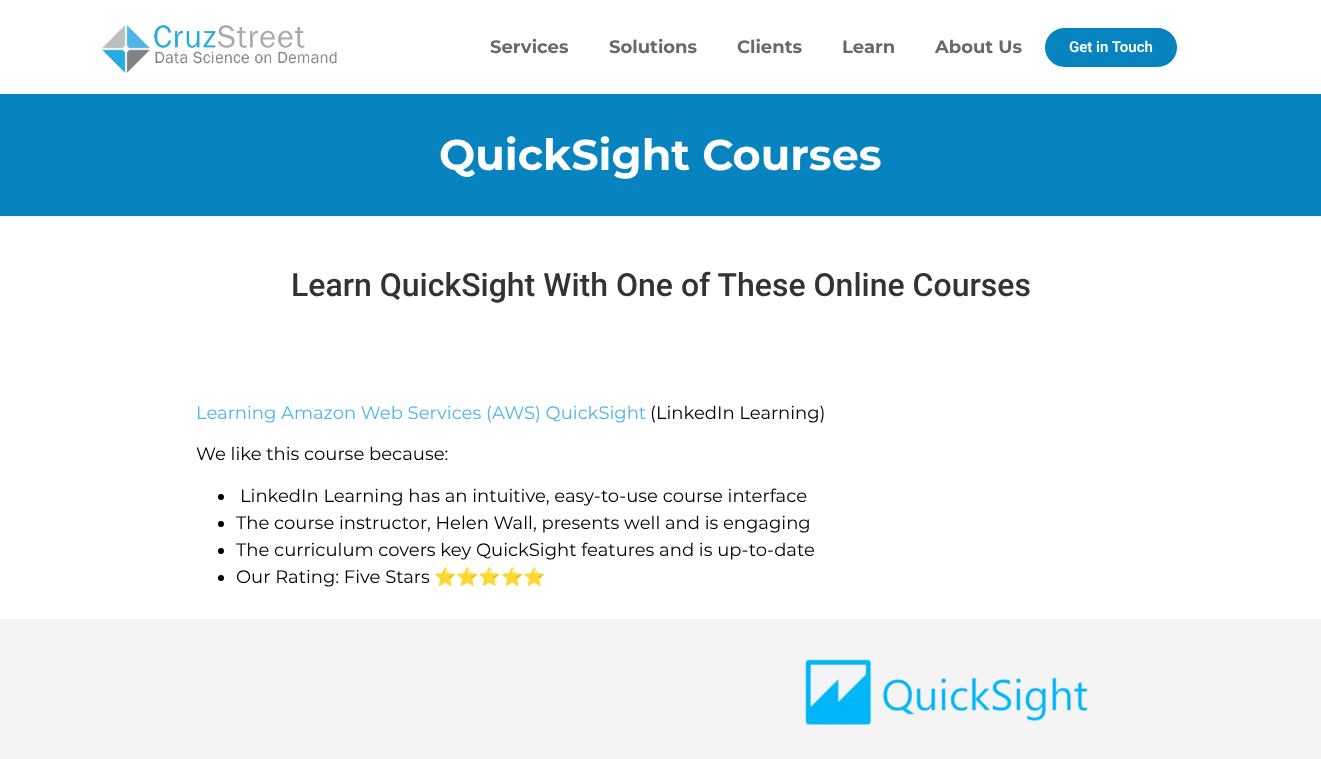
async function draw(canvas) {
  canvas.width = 1321;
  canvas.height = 759;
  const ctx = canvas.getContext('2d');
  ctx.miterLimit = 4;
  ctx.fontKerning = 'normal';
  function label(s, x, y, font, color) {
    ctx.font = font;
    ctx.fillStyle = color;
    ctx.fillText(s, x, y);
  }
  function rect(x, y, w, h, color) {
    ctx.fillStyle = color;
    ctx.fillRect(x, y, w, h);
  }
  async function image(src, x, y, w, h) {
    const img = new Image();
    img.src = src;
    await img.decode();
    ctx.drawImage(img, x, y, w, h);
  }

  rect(0, 0, 1321, 759, '#fff');
  await image('assets/img1.png', 101, 25, 236, 48);
  label('Services', 490, 53, 'bold 18px Montserrat', '#696969');
  label('Solutions', 609, 53, 'bold 18px Montserrat', '#696969');
  label('Clients', 737, 53, 'bold 18px Montserrat', '#696969');
  label('Learn', 842, 53, 'bold 18px Montserrat', '#696969');
  label('About Us', 935, 53, 'bold 18px Montserrat', '#696969');
  ctx.fillStyle = '#0784bf';
  ctx.beginPath();
  ctx.roundRect(1043.5, 26.5, 135, 42, 21);
  ctx.fill();
  ctx.strokeStyle = '#fff';
  ctx.lineWidth = 3;
  ctx.stroke();
  label('Get in Touch', 1069, 52, '600 15px Roboto', '#fff');
  rect(0, 94, 1321, 122, '#0784bf');
  label('QuickSight Courses', 439, 170, 'bold 43px Montserrat', '#fff');
  label('Learn QuickSight With One of These Online Courses', 291, 296, '500 32px Roboto', '#333');
  label('Learning Amazon Web Services (AWS) QuickSight', 196, 419, '18px Montserrat', '#50b5e7');
  label('(LinkedIn Learning)', 650, 419, '18px Montserrat', '#000');
  label('We like this course because:', 196, 460, '18px Montserrat', '#000');
  ctx.beginPath();
  ctx.arc(221, 497, 3, 0, 2 * Math.PI);
  ctx.fill();
  label('LinkedIn Learning has an intuitive, easy-to-use course interface', 240, 502, '18px Montserrat', '#000');
  ctx.beginPath();
  ctx.arc(221, 524, 3, 0, 2 * Math.PI);
  ctx.fill();
  label('The course instructor, Helen Wall, presents well and is engaging', 236, 529, '18px Montserrat', '#000');
  ctx.beginPath();
  ctx.arc(221, 551, 3, 0, 2 * Math.PI);
  ctx.fill();
  label('The curriculum covers key QuickSight features and is up-to-date', 236, 556, '18px Montserrat', '#000');
  ctx.beginPath();
  ctx.arc(221, 578, 3, 0, 2 * Math.PI);
  ctx.fill();
  label('Our Rating: Five Stars', 236, 583, '18px Montserrat', '#000');
  label('⭐️⭐️⭐️⭐️⭐️', 434, 583, '18px Noto Color Emoji', '#000');
  rect(0, 619, 1321, 140, '#f4f4f4');
  await image('assets/img2.png', 805, 659, 283, 66);
}

draw(document.querySelector('canvas'));
